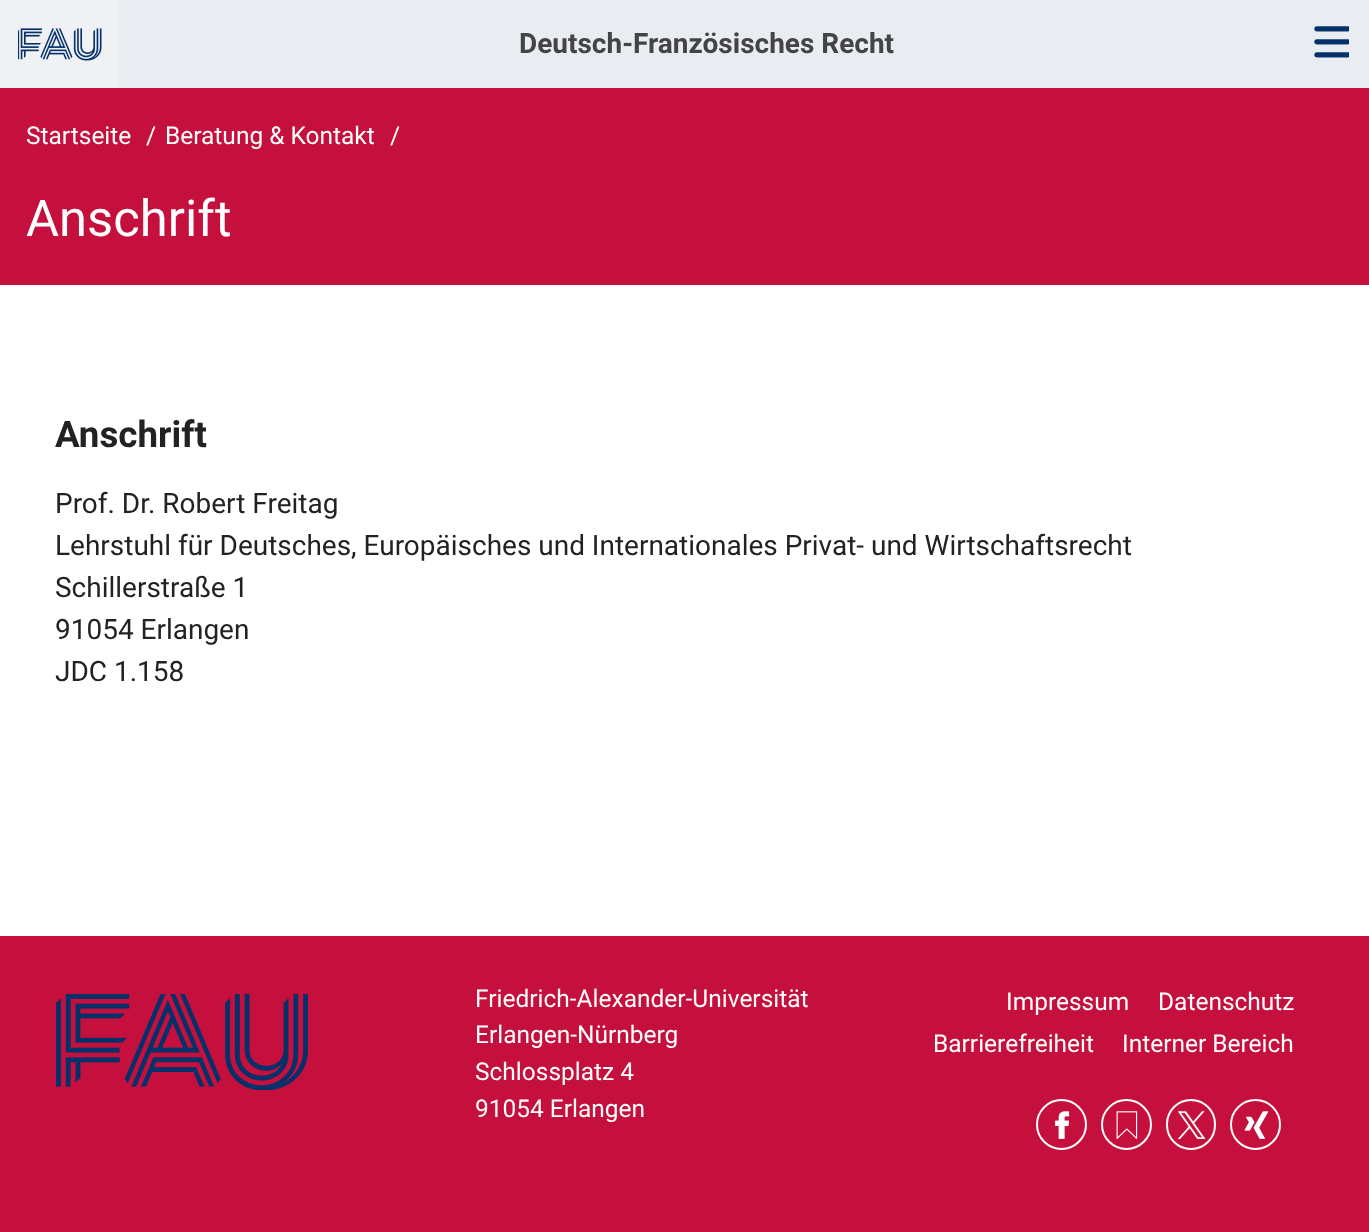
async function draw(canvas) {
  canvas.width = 1369;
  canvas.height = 1232;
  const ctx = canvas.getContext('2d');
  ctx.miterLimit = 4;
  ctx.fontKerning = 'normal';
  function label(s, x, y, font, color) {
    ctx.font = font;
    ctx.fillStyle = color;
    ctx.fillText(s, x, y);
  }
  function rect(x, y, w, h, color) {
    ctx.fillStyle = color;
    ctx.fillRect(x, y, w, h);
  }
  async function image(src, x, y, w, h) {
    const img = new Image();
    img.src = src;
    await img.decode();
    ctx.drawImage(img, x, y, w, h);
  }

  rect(0, 0, 1369, 1232, '#fff');
  rect(119, 0, 1250, 88, '#e9edf2');
  rect(0, 0, 119, 88, '#eff1f4');
  await image('assets/img1.png', 18, 28, 84, 33);
  label('Deutsch-Französisches Recht', 519, 53, 'bold 28px Roboto', '#444');
  await image('assets/img2.png', 1314, 26, 35, 32);
  rect(0, 88, 1369, 197, '#c50f3c');
  label('Startseite', 26, 144, '24.5px Roboto', '#fff');
  label('/', 146, 144, '24.5px Roboto', '#fff');
  label('Beratung & Kontakt', 165, 144, '24.5px Roboto', '#fff');
  label('/', 390, 144, '24.5px Roboto', '#fff');
  label('Anschrift', 26, 236, '50.75px Roboto', '#fff');
  label('Anschrift', 55, 447, 'bold 36.75px Roboto', '#222');
  label('Prof. Dr. Robert Freitag', 55, 513, '28px Roboto', '#222');
  label('Lehrstuhl für Deutsches, Europäisches und Internationales Privat- und Wirtschaftsrecht', 55, 555, '28px Roboto', '#222');
  label('Schillerstraße 1', 55, 597, '28px Roboto', '#222');
  label('91054 Erlangen', 55, 639, '28px Roboto', '#222');
  label('JDC 1.158', 55, 681, '28px Roboto', '#222');
  rect(0, 936, 1369, 296, '#c50f3c');
  await image('assets/img3.png', 56, 994, 252, 96);
  label('Friedrich-Alexander-Universität', 475, 1007, '24.5px Roboto', '#fff');
  label('Erlangen-Nürnberg', 475, 1043, '24.5px Roboto', '#fff');
  label('Schlossplatz 4', 475, 1080, '24.5px Roboto', '#fff');
  label('91054 Erlangen', 475, 1117, '24.5px Roboto', '#fff');
  label('Impressum', 1006, 1010, '24.5px Roboto', '#fff');
  label('Datenschutz', 1158, 1010, '24.5px Roboto', '#fff');
  label('Barrierefreiheit', 933, 1052, '24.5px Roboto', '#fff');
  label('Interner Bereich', 1122, 1052, '24.5px Roboto', '#fff');
  ctx.beginPath();
  ctx.arc(1061.5, 1124.5, 24.5, 0, 2 * Math.PI);
  ctx.strokeStyle = '#fff';
  ctx.lineWidth = 2;
  ctx.stroke();
  await image('assets/img4.png', 1055, 1111, 15, 28);
  ctx.beginPath();
  ctx.arc(1126.5, 1124.5, 24.5, 0, 2 * Math.PI);
  ctx.stroke();
  await image('assets/img5.png', 1116, 1111, 22, 28);
  ctx.beginPath();
  ctx.roundRect(1167, 1100, 48, 49, 24);
  ctx.stroke();
  await image('assets/img6.png', 1178, 1111, 28, 28);
  ctx.beginPath();
  ctx.arc(1255.5, 1124.5, 24.5, 0, 2 * Math.PI);
  ctx.stroke();
  await image('assets/img7.png', 1244, 1111, 25, 28);
}

draw(document.querySelector('canvas'));
